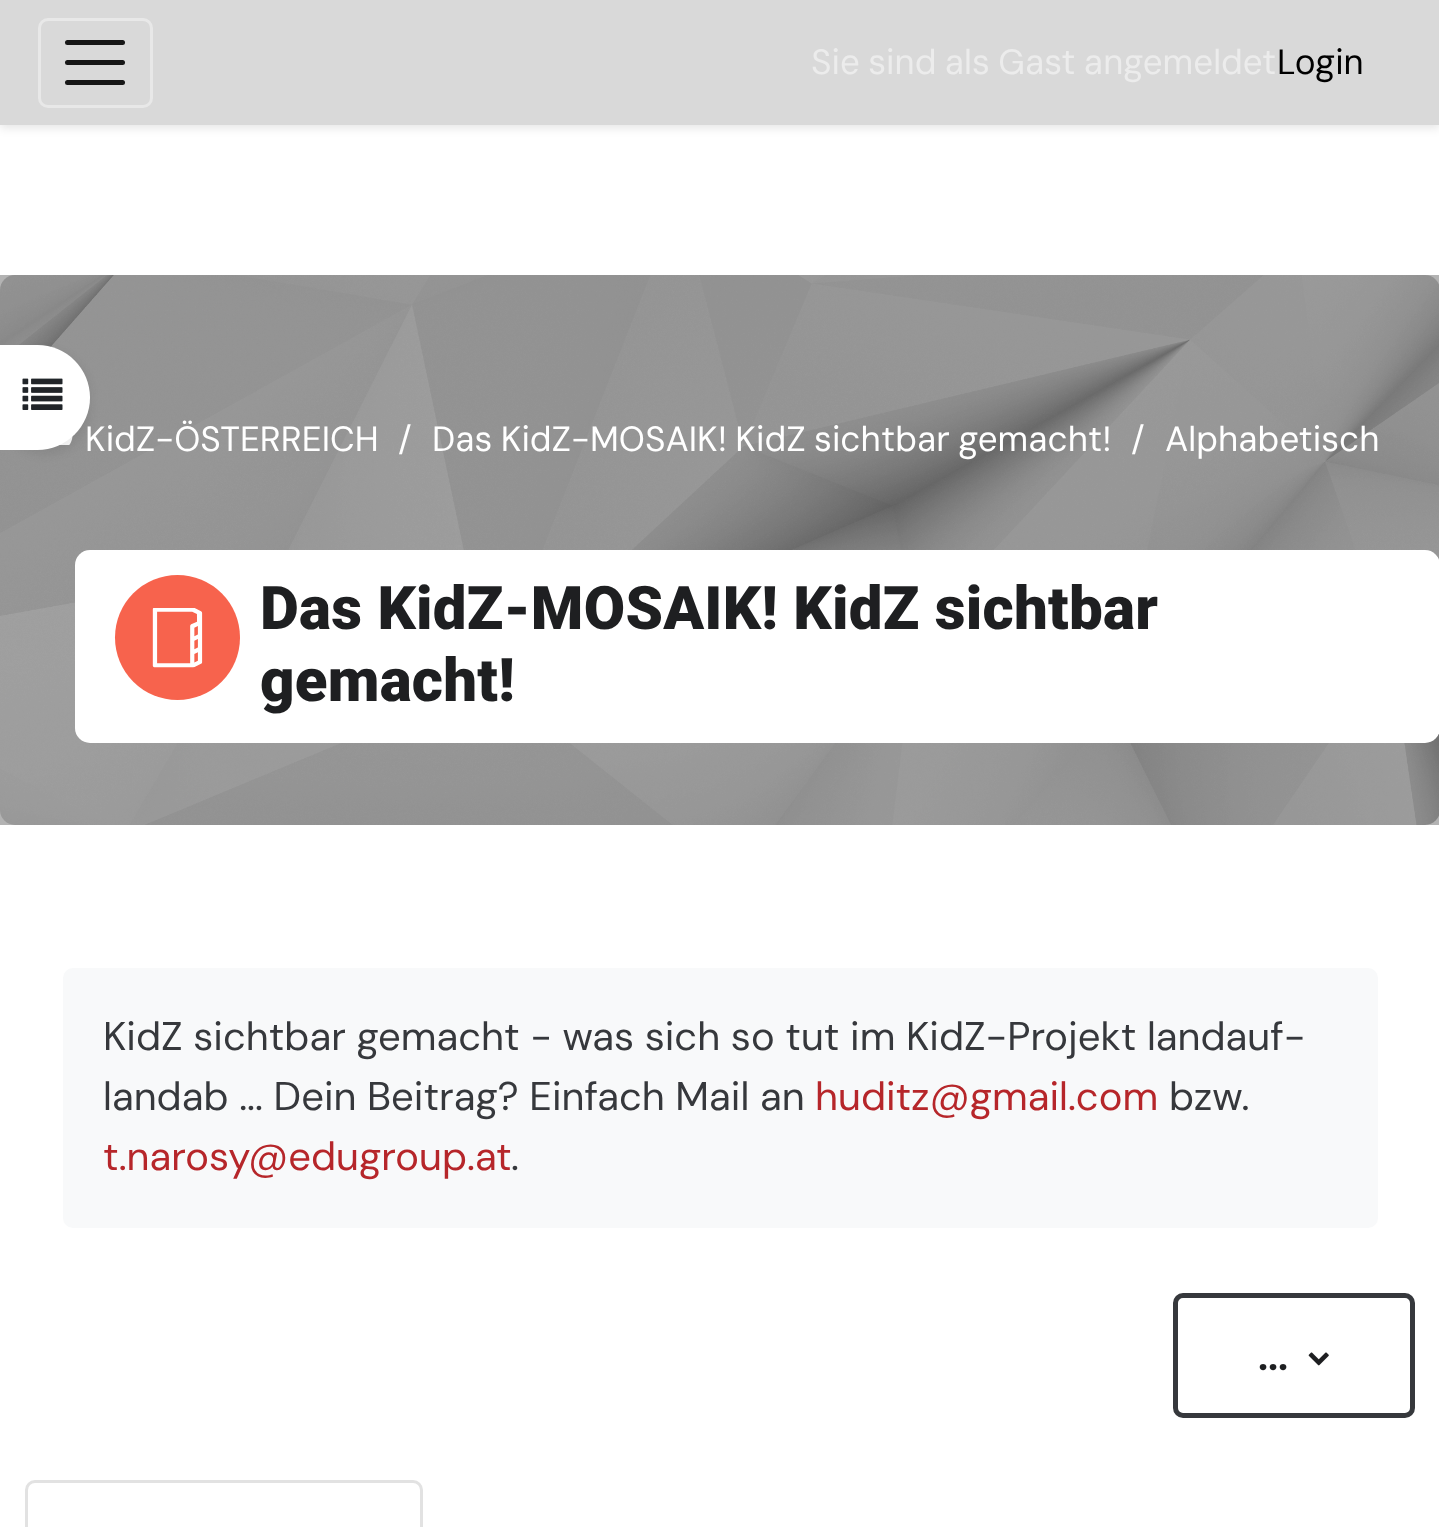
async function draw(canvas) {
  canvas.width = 1439;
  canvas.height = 1527;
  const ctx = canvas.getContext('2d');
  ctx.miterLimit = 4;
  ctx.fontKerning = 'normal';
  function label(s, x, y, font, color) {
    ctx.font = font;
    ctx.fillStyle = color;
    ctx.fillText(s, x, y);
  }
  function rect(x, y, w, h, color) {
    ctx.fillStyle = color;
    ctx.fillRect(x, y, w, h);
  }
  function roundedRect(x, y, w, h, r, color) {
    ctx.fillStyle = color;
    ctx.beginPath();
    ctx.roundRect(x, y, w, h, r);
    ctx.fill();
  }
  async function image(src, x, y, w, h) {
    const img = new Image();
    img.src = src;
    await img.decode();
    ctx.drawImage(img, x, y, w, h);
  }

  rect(0, 0, 1439, 1527, '#fff');
  rect(0, 275, 1439, 550, '#b3b3b3');
  ctx.fillStyle = '#0000001a';
  ctx.filter = 'blur(5px)';
  ctx.beginPath();
  ctx.rect(0, 3, 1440, 125);
  ctx.fill();
  ctx.filter = 'none';
  rect(0, 0, 1439, 125, '#d9d9d9');
  ctx.beginPath();
  ctx.roundRect(39.5, 19.5, 112, 87, 8.5);
  ctx.strokeStyle = '#e8e8e8';
  ctx.lineWidth = 3;
  ctx.stroke();
  roundedRect(65, 40, 60, 5, 2.5, '#161616');
  roundedRect(65, 60, 60, 5, 2.5, '#161616');
  roundedRect(65, 80, 60, 5, 2.5, '#161616');
  ctx.wordSpacing = '-1px';
  label('Sie sind als Gast angemeldet', 811, 74, '35px DM Sans', '#ececec');
  ctx.wordSpacing = '0px';
  label('Login', 1277, 74, '35px DM Sans', '#000');
  await image('assets/img2.png', 0, 275, 1439, 550);
  await image('assets/img3.png', 59, 436, 14, 9);
  ctx.fillStyle = '#00000012';
  ctx.filter = 'blur(5px)';
  ctx.beginPath();
  ctx.roundRect(0, 350, 90, 105, 53);
  ctx.fill();
  ctx.filter = 'none';
  ctx.fillStyle = '#fff';
  ctx.beginPath();
  ctx.roundRect(0, 345, 90, 105, [0, 52.5, 52.5, 0]);
  ctx.fill();
  await image('assets/img1.png', 22, 378, 41, 32);
  label('KidZ-ÖSTERREICH', 85, 451, '35px DM Sans', '#fff');
  label('/', 398, 451, '35px DM Sans', '#fff');
  ctx.wordSpacing = '-1px';
  label('Das KidZ-MOSAIK! KidZ sichtbar gemacht!', 432, 451, '35px DM Sans', '#fff');
  ctx.wordSpacing = '0px';
  label('/', 1131, 451, '35px DM Sans', '#fff');
  label('Alphabetisch', 1165, 451, '35px DM Sans', '#fff');
  roundedRect(75, 550, 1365, 193, 15, '#fff');
  ctx.fillStyle = '#f7634d';
  ctx.beginPath();
  ctx.arc(177.5, 637.5, 62.5, 0, 2 * Math.PI);
  ctx.fill();
  await image('assets/img4.png', 152, 608, 51, 60);
  ctx.letterSpacing = '0.25px';
  label('Das KidZ-MOSAIK! KidZ sichtbar', 260, 629, '900 60px Roboto', '#1e1f21');
  label('gemacht!', 260, 701, '900 60px Roboto', '#1e1f21');
  roundedRect(63, 968, 1315, 260, 10, '#f8f9fa');
  ctx.letterSpacing = '0px';
  label('KidZ sichtbar gemacht - was sich so tut im KidZ-Projekt landauf-', 103, 1050, '40px "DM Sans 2"', '#36383c');
  label('landab ... Dein Beitrag? Einfach Mail an', 103, 1110, '40px "DM Sans 2"', '#36383c');
  label('huditz@gmail.com', 815, 1110, '40px "DM Sans 2"', '#b6262a');
  label('bzw.', 1169, 1110, '40px "DM Sans 2"', '#36383c');
  label('t.narosy@edugroup.at', 103, 1170, '40px "DM Sans 2"', '#b6262a');
  label('.', 511, 1170, '40px "DM Sans 2"', '#36383c');
  ctx.beginPath();
  ctx.roundRect(1175.5, 1295.5, 237, 120, 7.5);
  ctx.strokeStyle = '#36383c';
  ctx.lineWidth = 5;
  ctx.stroke();
  await image('assets/img5.png', 1308, 1352, 21, 14);
  label('...', 1258, 1370, 'bold 40px DM Sans', '#1e1f21');
  ctx.beginPath();
  ctx.roundRect(26.5, 1481.5, 395, 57, 8.5);
  ctx.strokeStyle = '#e2e2e2';
  ctx.lineWidth = 3;
  ctx.stroke();
}

draw(document.querySelector('canvas'));
